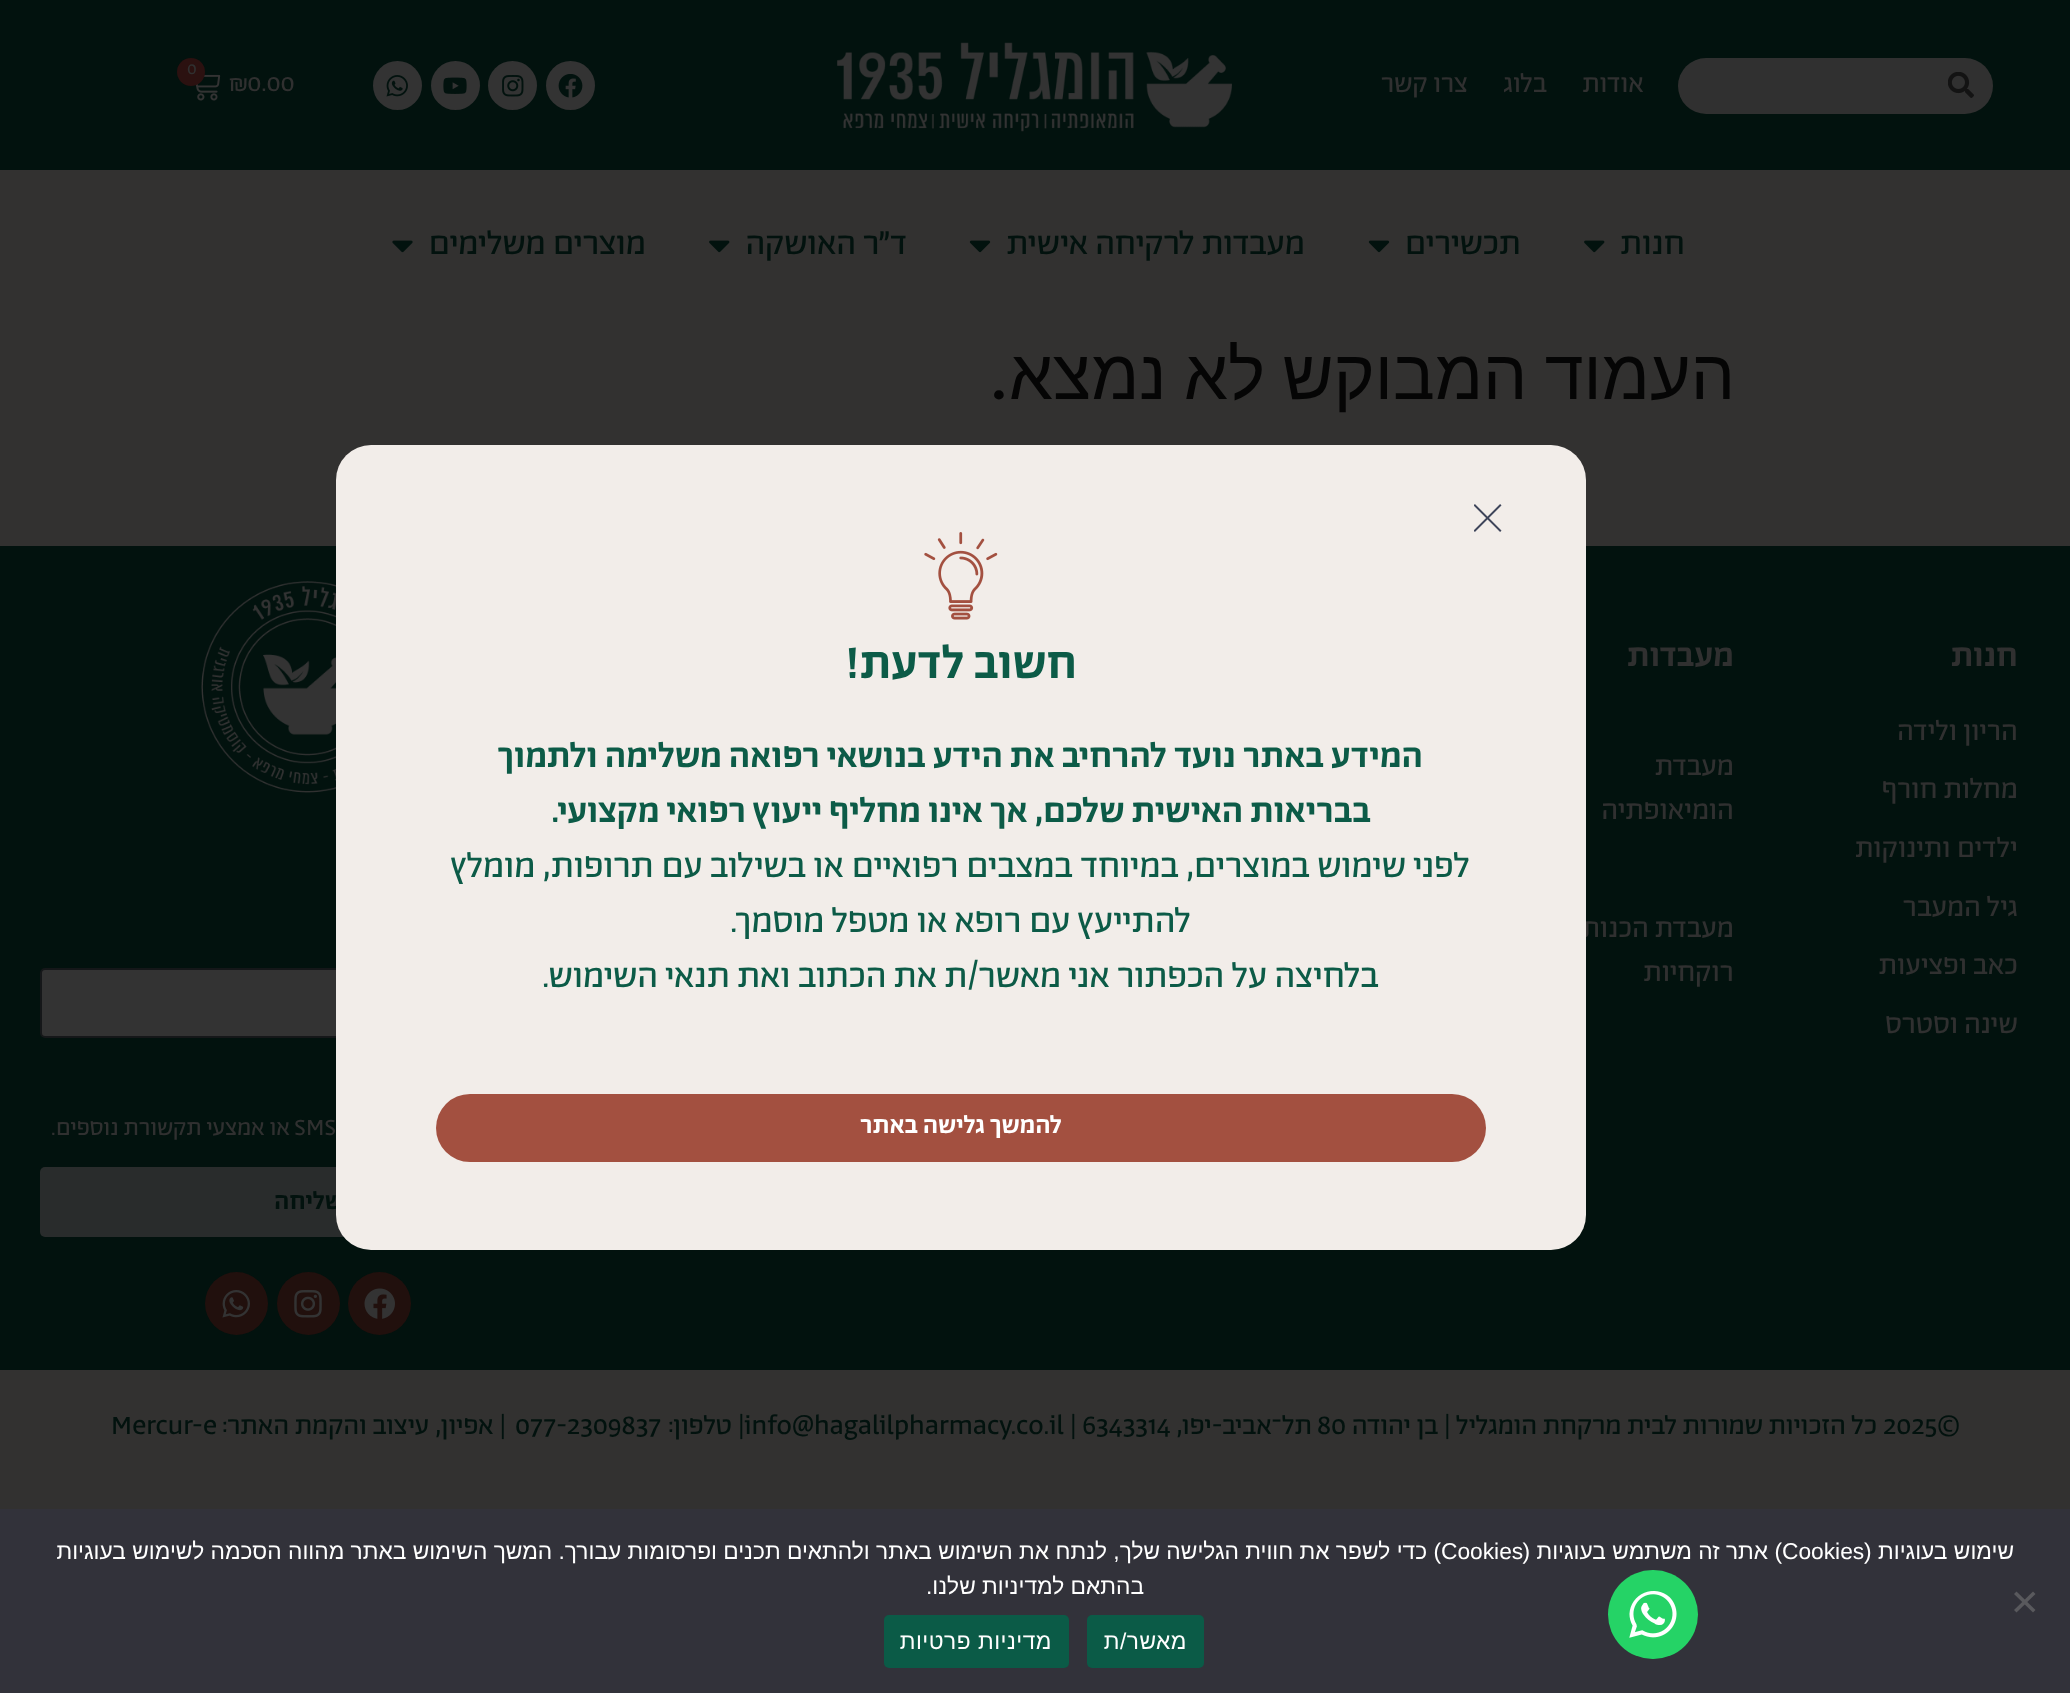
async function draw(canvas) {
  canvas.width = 2070;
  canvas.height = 1693;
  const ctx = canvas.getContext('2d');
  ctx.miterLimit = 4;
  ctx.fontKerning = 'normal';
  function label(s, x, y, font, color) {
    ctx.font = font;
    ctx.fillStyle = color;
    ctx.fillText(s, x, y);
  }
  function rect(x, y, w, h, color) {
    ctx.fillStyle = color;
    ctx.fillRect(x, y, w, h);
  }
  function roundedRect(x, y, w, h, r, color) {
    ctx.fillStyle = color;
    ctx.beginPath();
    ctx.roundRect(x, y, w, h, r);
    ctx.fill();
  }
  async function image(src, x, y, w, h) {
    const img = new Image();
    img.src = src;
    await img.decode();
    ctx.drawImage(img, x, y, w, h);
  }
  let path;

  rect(0, 0, 2070, 1693, '#323130');
  rect(0, 0, 2070, 170, '#02120e');
  roundedRect(1678, 58, 315, 56, 28, '#303030');
  await image('assets/img1.png', 1948, 72, 26, 26);
  ctx.direction = 'rtl';
  label('אודות', 1644, 92, '28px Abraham', '#303030');
  label('בלוג', 1547, 92, '28px Abraham', '#303030');
  label('צרו קשר', 1468, 92, '28px Abraham', '#303030');
  await image('assets/img2.png', 837, 42, 395, 90);
  ctx.fillStyle = '#333';
  ctx.beginPath();
  ctx.arc(570.5, 85.5, 24.5, 0, 2 * Math.PI);
  ctx.fill();
  await image('assets/img3.png', 558, 74, 25, 24);
  ctx.beginPath();
  ctx.arc(512.5, 85.5, 24.5, 0, 2 * Math.PI);
  ctx.fill();
  await image('assets/img4.png', 502, 75, 22, 22);
  ctx.beginPath();
  ctx.arc(455.5, 85.5, 24.5, 0, 2 * Math.PI);
  ctx.fill();
  await image('assets/img5.png', 443, 77, 24, 17);
  ctx.beginPath();
  ctx.arc(397.5, 85.5, 24.5, 0, 2 * Math.PI);
  ctx.fill();
  await image('assets/img6.png', 386, 75, 22, 22);
  await image('assets/img7.png', 195, 74, 26, 27);
  ctx.fillStyle = '#2b1110';
  ctx.beginPath();
  ctx.arc(191, 72, 14, 0, 2 * Math.PI);
  ctx.fill();
  ctx.direction = 'ltr';
  label('0', 187, 74, '18px Abraham', '#303030');
  label('₪0.00', 229, 91, '26.25px Abraham', '#303030');
  ctx.direction = 'rtl';
  label('חנות', 1685, 254, '35px Abraham', '#02120e');
  await image('assets/img8.png', 1584, 240, 21, 13);
  label('תכשירים', 1521, 254, '35px Abraham', '#02120e');
  await image('assets/img9.png', 1368, 240, 22, 13);
  label('מעבדות לרקיחה אישית', 1305, 254, '35px Abraham', '#02120e');
  await image('assets/img9.png', 969, 240, 22, 13);
  label('ד״ר האושקה', 907, 254, '35px Abraham', '#02120e');
  await image('assets/img8.png', 709, 240, 21, 13);
  label('מוצרים משלימים', 646, 254, '35px Abraham', '#02120e');
  await image('assets/img10.png', 392, 240, 21, 13);
  ctx.wordSpacing = '-2px';
  label('העמוד המבוקש לא נמצא', 1735, 399, '70px Liberation Sans', '#050505');
  ctx.wordSpacing = '0px';
  label('.', 1009, 399, '500 70px Roboto', '#050505');
  rect(0, 546, 2070, 824, '#02120e');
  label('מעבדת הכנות', 1734, 937, '29.75px Abraham', '#303030');
  ctx.fillStyle = '#333';
  ctx.beginPath();
  ctx.roundRect(41, 969, 536, 68, 4);
  ctx.fill();
  ctx.strokeStyle = '#151719';
  ctx.lineWidth = 2;
  ctx.stroke();
  roundedRect(40, 1167, 538, 70, 5, '#292c2c');
  label('שליחה', 343, 1209, '500 26.25px Abraham', '#02120e');
  roundedRect(336, 445, 1250, 805, 35, '#f2ede9');
  await image('assets/img11.png', 1474, 504, 28, 28);
  await image('assets/img12.png', 924, 532, 74, 88);
  label('חשוב לדעת!', 1077, 678, '500 49px Abraham', '#0c5b47');
  label('המידע באתר נועד להרחיב את הידע בנושאי רפואה משלימה ולתמוך', 1423, 767, '500 36.75px Abraham', '#0c5b47');
  label('בבריאות האישית שלכם, אך אינו מחליף ייעוץ רפואי מקצועי.', 1371, 822, '500 36.75px Abraham', '#0c5b47');
  label('לפני שימוש במוצרים, במיוחד במצבים רפואיים או בשילוב עם תרופות, מומלץ', 1470, 877, '36.75px Abraham', '#0c5b47');
  label('להתייעץ עם רופא או מטפל מוסמך.', 1191, 932, '36.75px Abraham', '#0c5b47');
  label('בלחיצה על הכפתור אני מאשר/ת את הכתוב ואת תנאי השימוש.', 1379, 987, '36.75px Abraham', '#0c5b47');
  roundedRect(436, 1094, 1050, 68, 34, '#a35040');
  label('להמשך גלישה באתר', 1062, 1133, '500 26.25px Abraham', '#fff');
  label('חנות', 2018, 666, '500 35px Abraham', '#303030');
  label('הריון ולידה', 2018, 740, '29.75px Abraham', '#303030');
  label('מחלות חורף', 2018, 798, '29.75px Abraham', '#303030');
  label('ילדים ותינוקות', 2018, 857, '29.75px Abraham', '#303030');
  label('גיל המעבר', 2018, 916, '29.75px Abraham', '#303030');
  label('כאב ופציעות', 2018, 974, '29.75px Abraham', '#303030');
  label('שינה וסטרס', 2018, 1033, '29.75px Abraham', '#303030');
  label('מעבדות', 1734, 666, '500 35px Abraham', '#303030');
  label('מעבדת', 1734, 775, '29.75px Abraham', '#303030');
  label('הומיאופתיה', 1734, 819, '29.75px Abraham', '#303030');
  label('רוקחיות', 1734, 981, '29.75px Abraham', '#303030');
  await image('assets/img13.png', 201, 581, 135, 212);
  ctx.direction = 'ltr';
  label('SMS', 294, 1135, '24.5px Abraham', '#303030');
  ctx.direction = 'rtl';
  label('או אמצעי תקשורת נוספים.', 290, 1135, '24.5px Abraham', '#303030');
  ctx.fillStyle = '#21100d';
  ctx.beginPath();
  ctx.arc(379.5, 1303.5, 31.5, 0, 2 * Math.PI);
  ctx.fill();
  await image('assets/img14.png', 364, 1288, 31, 31);
  ctx.beginPath();
  ctx.arc(308.5, 1303.5, 31.5, 0, 2 * Math.PI);
  ctx.fill();
  await image('assets/img15.png', 294, 1289, 28, 29);
  ctx.beginPath();
  ctx.arc(236.5, 1303.5, 31.5, 0, 2 * Math.PI);
  ctx.fill();
  await image('assets/img16.png', 222, 1290, 28, 28);
  ctx.direction = 'ltr';
  label('2025©', 1883, 1434, '28px Abraham', '#02120e');
  ctx.direction = 'rtl';
  label('כל הזכויות שמורות לבית מרקחת הומגליל | בן יהודה', 1877, 1434, '28px Abraham', '#02120e');
  ctx.direction = 'ltr';
  label('80', 1317, 1434, '28px Abraham', '#02120e');
  ctx.direction = 'rtl';
  label('תל־אביב-יפו,', 1312, 1434, '28px Abraham', '#02120e');
  ctx.direction = 'ltr';
  label('| 6343314', 1070, 1434, '28px Abraham', '#02120e');
  label('info@hagalilpharmacy.co.il', 744, 1434, '28px Abraham', '#02120e');
  label('|', 738, 1434, '28px Abraham', '#02120e');
  ctx.direction = 'rtl';
  label('טלפון:', 732, 1434, '28px Abraham', '#02120e');
  ctx.direction = 'ltr';
  label('077-2309837', 515, 1434, '28px Abraham', '#02120e');
  ctx.direction = 'rtl';
  label('| אפיון, עיצוב והקמת האתר:', 506, 1434, '28px Abraham', '#02120e');
  ctx.direction = 'ltr';
  label('Mercur-e', 111, 1434, '28px Abraham', '#02120e');
  rect(0, 1509, 2070, 184, '#32323a');
  ctx.direction = 'rtl';
  label('שימוש בעוגיות (', 2014, 1559, '22.75px Liberation Sans', '#fff');
  ctx.direction = 'ltr';
  label('Cookies', 1782, 1559, '22.75px Liberation Sans', '#fff');
  ctx.direction = 'rtl';
  label(') אתר זה משתמש בעוגיות (', 1782, 1559, '22.75px Liberation Sans', '#fff');
  ctx.direction = 'ltr';
  label('Cookies', 1441, 1559, '22.75px Liberation Sans', '#fff');
  ctx.direction = 'rtl';
  label(') כדי לשפר את חווית הגלישה שלך, לנתח את השימוש באתר ולהתאים תכנים ופרסומות עבורך. המשך השימוש באתר מהווה הסכמה לשימוש בעוגיות', 1441, 1559, '22.75px Liberation Sans', '#fff');
  label('בהתאם למדיניות שלנו.', 1144, 1594, '22.75px Liberation Sans', '#fff');
  ctx.fillStyle = '#59595d';
  path = new Path2D('M2033 1591.5L2035.5 1594L2016.5 1612.5L2014 1610Z');
  ctx.fill(path);
  path = new Path2D('M2014 1594L2016.5 1591.5L2035.5 1610L2033 1612.5Z');
  ctx.fill(path);
  roundedRect(1087, 1615, 117, 53, 5, '#0b5b47');
  ctx.letterSpacing = '0.5px';
  label('מאשר/ת', 1187, 1649, '22.75px Liberation Sans', '#fff');
  roundedRect(884, 1615, 185, 53, 5, '#0b5b47');
  label('מדיניות פרטיות', 1052, 1649, '22.75px Liberation Sans', '#fff');
  roundedRect(1608, 1570, 90, 89, 44.5, '#25d366');
  await image('assets/img17.png', 1629, 1591, 48, 47);
}

draw(document.querySelector('canvas'));
